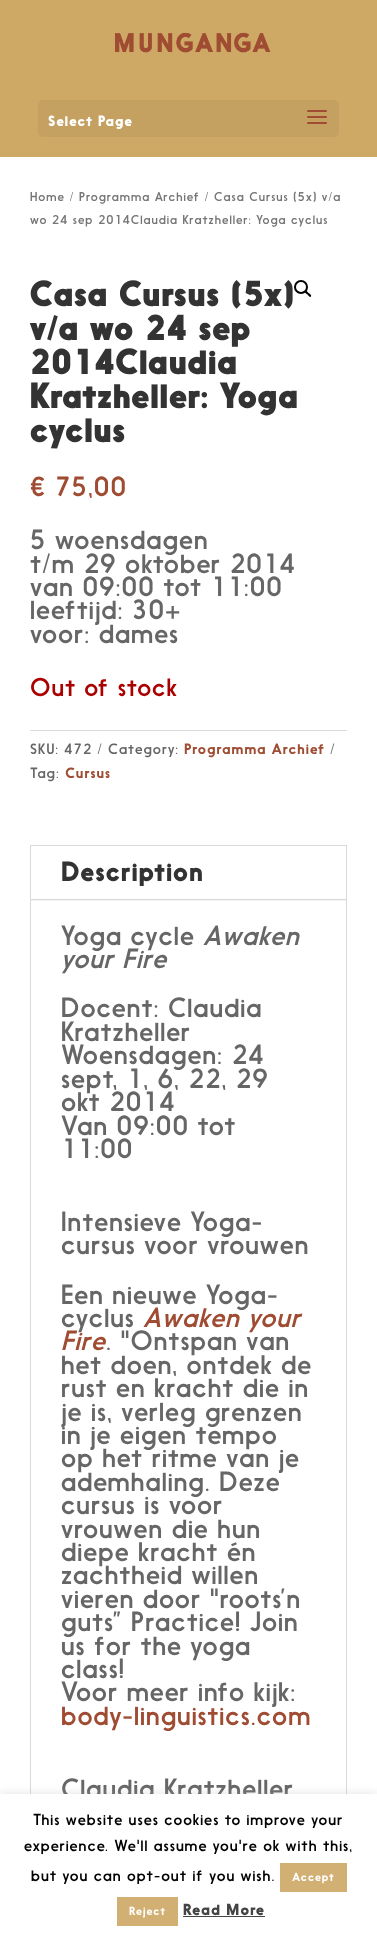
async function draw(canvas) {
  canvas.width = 377;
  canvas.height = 1938;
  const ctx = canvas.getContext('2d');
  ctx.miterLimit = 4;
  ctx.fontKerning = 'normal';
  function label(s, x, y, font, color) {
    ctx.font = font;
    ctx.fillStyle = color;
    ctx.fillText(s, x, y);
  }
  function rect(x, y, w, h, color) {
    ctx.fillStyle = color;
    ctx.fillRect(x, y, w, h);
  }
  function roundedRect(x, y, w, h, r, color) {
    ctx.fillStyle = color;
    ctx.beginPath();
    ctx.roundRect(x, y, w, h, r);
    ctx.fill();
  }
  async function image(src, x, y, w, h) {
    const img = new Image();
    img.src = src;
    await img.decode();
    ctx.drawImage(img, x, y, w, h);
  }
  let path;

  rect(0, 0, 377, 1938, '#fff');
  rect(0, 0, 377, 157, '#cea965');
  await image('assets/img1.png', 115, 32, 156, 21);
  roundedRect(38, 100, 301, 37, 5, '#c4a160');
  ctx.letterSpacing = '1px';
  label('Select Page', 48, 126, 'bold 14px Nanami', '#fff');
  await image('assets/img2.png', 307, 110, 20, 14);
  label('Home / Programma Archief / Casa Cursus (5x) v/a', 30, 201, '12px Nanami', '#767676');
  label('wo 24 sep 2014Claudia Kratzheller: Yoga cyclus', 30, 224, '12px Nanami', '#767676');
  label('Casa Cursus (5x)', 30, 306, '900 34px Nanami', '#333');
  label('v/a wo 24 sep', 30, 340, '900 34px Nanami', '#333');
  label('2014Claudia', 30, 374, '900 34px Nanami', '#333');
  label('Kratzheller: Yoga', 30, 408, '900 34px Nanami', '#333');
  label('cyclus', 30, 442, '900 34px Nanami', '#333');
  label('€ 75,00', 30, 496, '26px Nanami', '#9f4c33');
  label('5 woensdagen', 30, 549, '26px Nanami', '#666');
  label('t/m 29 oktober 2014', 30, 573, '26px Nanami', '#666');
  label('van 09:00 tot 11:00', 30, 596, '26px Nanami', '#666');
  label('leeftijd: 30+', 30, 619, '26px Nanami', '#666');
  label('voor: dames', 30, 643, '26px Nanami', '#666');
  label('Out of stock', 30, 696, '24px Nanami', '#a00');
  rect(30, 730, 317, 1, '#dadada');
  label('SKU: 472 / Category:', 30, 754, '14px Nanami', '#666');
  label('Programma Archief', 184, 754, '500 14px Nanami', '#9f4c33');
  label('/', 330, 754, '14px Nanami', '#666');
  label('Tag:', 30, 778, '14px Nanami', '#666');
  label('Cursus', 65, 778, '500 14px Nanami', '#9f4c33');
  ctx.beginPath();
  ctx.arc(301, 287, 6, 0, 2 * Math.PI);
  ctx.strokeStyle = '#000';
  ctx.lineWidth = 2;
  ctx.stroke();
  ctx.fillStyle = '#000';
  path = new Path2D('M305 291C306.5 290 308 292.5 308.5 293C309.5 293.5 312 295.5 311 296.5C309.5 298 308 295 307.5 294.5C306.5 294 304 292 305 291Z');
  ctx.fill(path);
  ctx.strokeStyle = '#d9d9d9';
  ctx.lineWidth = 1;
  ctx.strokeRect(30.5, 845.5, 316, 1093);
  rect(31, 900, 315, 1, '#f4f4f4');
  rect(31, 899, 315, 1, '#d9d9d9');
  label('Description', 61, 881, 'bold 26px Nanami', '#333');
  label('Yoga cycle', 61, 945, '26px Nanami', '#666');
  label('Awaken', 203, 945, 'italic 26px Nanami', '#666');
  label('your Fire', 61, 968, 'italic 26px Nanami', '#666');
  label('Docent: Claudia', 61, 1017, '26px Nanami', '#666');
  label('Kratzheller', 61, 1041, '26px Nanami', '#666');
  label('Woensdagen: 24', 61, 1064, '26px Nanami', '#666');
  label('sept, 1, 6, 22, 29', 61, 1088, '26px Nanami', '#666');
  label('okt 2014', 61, 1111, '26px Nanami', '#666');
  label('Van 09:00 tot', 61, 1135, '26px Nanami', '#666');
  label('11:00', 61, 1158, '26px Nanami', '#666');
  label('Intensieve Yoga-', 61, 1231, '26px Nanami', '#666');
  label('cursus voor vrouwen', 61, 1254, '26px Nanami', '#666');
  label('Een nieuwe Yoga-', 61, 1304, '26px Nanami', '#666');
  label('cyclus', 61, 1327, '26px Nanami', '#666');
  label('Awaken your', 143, 1327, 'italic 26px Nanami', '#9f4c33');
  label('Fire', 61, 1350, 'italic 26px Nanami', '#9f4c33');
  label('. "Ontspan van', 106, 1350, '26px Nanami', '#666');
  label('het doen, ontdek de', 61, 1374, '26px Nanami', '#666');
  label('rust en kracht die in', 61, 1397, '26px Nanami', '#666');
  label('je is, verleg grenzen', 61, 1421, '26px Nanami', '#666');
  label('in je eigen tempo', 61, 1444, '26px Nanami', '#666');
  label('op het ritme van je', 61, 1467, '26px Nanami', '#666');
  label('ademhaling. Deze', 61, 1491, '26px Nanami', '#666');
  label('cursus is voor', 61, 1514, '26px Nanami', '#666');
  label('vrouwen die hun', 61, 1538, '26px Nanami', '#666');
  label('diepe kracht én', 61, 1561, '26px Nanami', '#666');
  label('zachtheid willen', 61, 1584, '26px Nanami', '#666');
  label('vieren door "roots’n', 61, 1608, '26px Nanami', '#666');
  label('guts” Practice! Join', 61, 1631, '26px Nanami', '#666');
  label('us for the yoga', 61, 1655, '26px Nanami', '#666');
  label('class!', 61, 1678, '26px Nanami', '#666');
  label('Voor meer info kijk:', 61, 1701, '26px Nanami', '#666');
  label('body-linguistics.com', 61, 1725, '26px Nanami', '#9f4c33');
  label('Claudia Kratzheller', 61, 1798, '26px Nanami', '#666');
  ctx.fillStyle = '#acabab4d';
  ctx.filter = 'blur(5px)';
  ctx.beginPath();
  ctx.rect(0, 1793, 377, 144);
  ctx.fill();
  ctx.filter = 'none';
  rect(0, 1794, 377, 144, '#fff');
  label('This website uses cookies to improve your', 33, 1825, '15px Nanami', '#000');
  label('experience. We\'ll assume you\'re ok with this,', 24, 1851, '15px Nanami', '#000');
  label('but you can opt-out if you wish.', 31, 1881, '15px Nanami', '#000');
  rect(280, 1863, 67, 29, '#d2b074');
  label('Accept', 292, 1881, '500 11px Nanami', '#fff');
  rect(117, 1897, 61, 29, '#d2b074');
  label('Reject', 129, 1915, '500 11px Nanami', '#fff');
  label('Read More', 183, 1915, 'bold 15px Nanami', '#444');
  rect(183, 1916, 82, 1, '#444');
}

draw(document.querySelector('canvas'));
